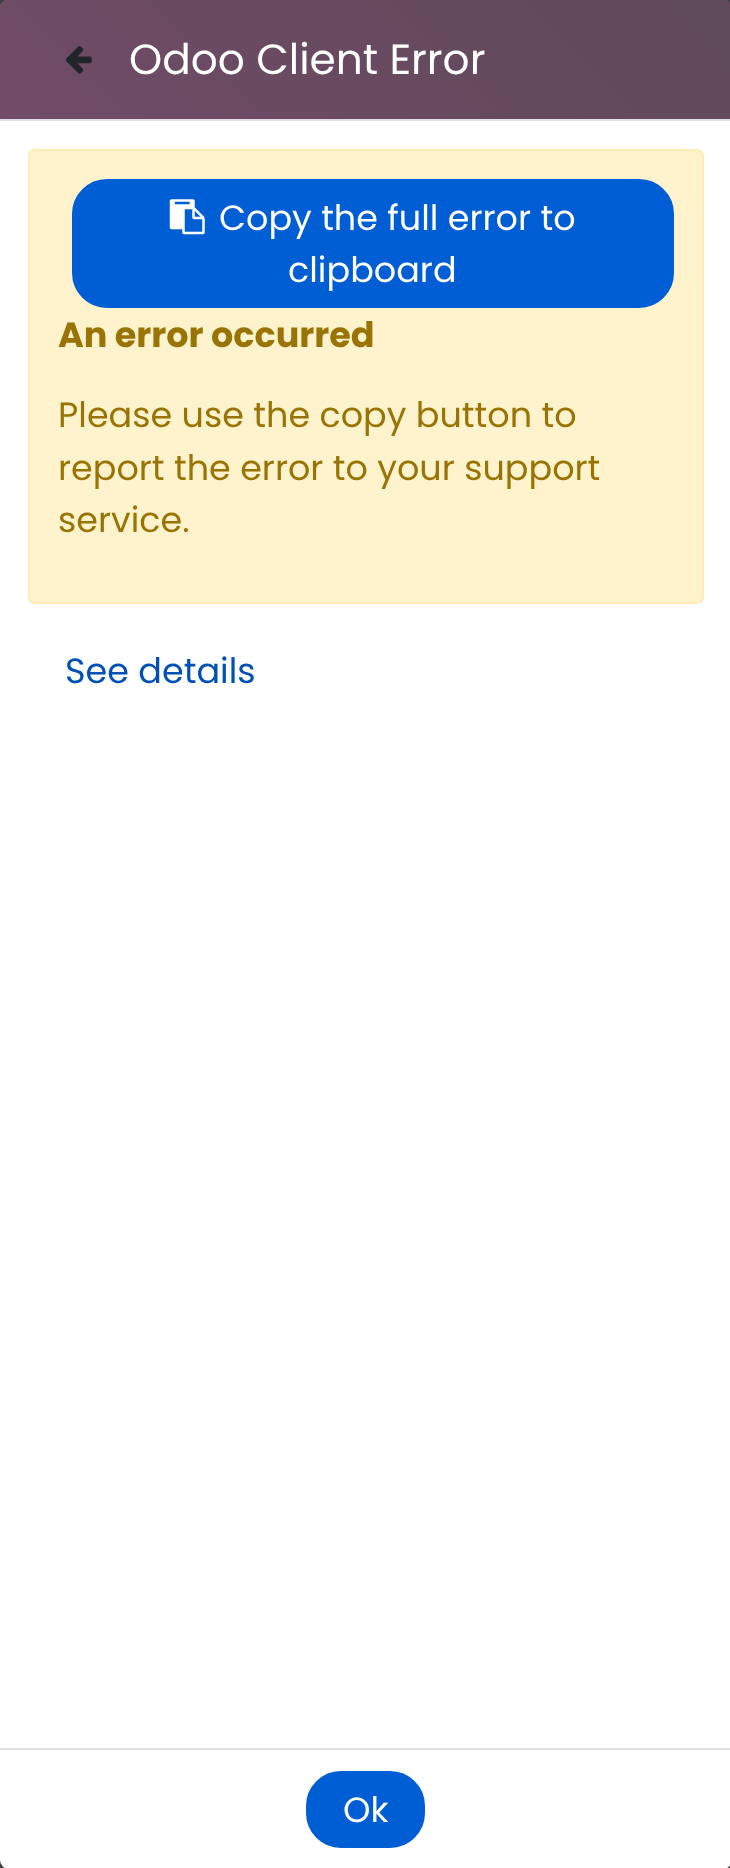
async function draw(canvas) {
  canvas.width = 730;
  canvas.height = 1868;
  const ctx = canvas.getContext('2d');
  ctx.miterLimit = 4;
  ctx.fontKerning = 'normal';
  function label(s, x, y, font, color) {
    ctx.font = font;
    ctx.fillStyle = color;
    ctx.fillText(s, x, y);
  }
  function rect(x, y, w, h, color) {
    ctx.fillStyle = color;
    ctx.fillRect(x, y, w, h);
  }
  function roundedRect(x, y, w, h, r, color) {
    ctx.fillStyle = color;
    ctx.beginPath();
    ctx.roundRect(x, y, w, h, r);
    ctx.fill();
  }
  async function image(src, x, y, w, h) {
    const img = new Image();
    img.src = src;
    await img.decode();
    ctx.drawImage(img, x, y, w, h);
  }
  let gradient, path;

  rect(0, 0, 730, 1868, '#404040');
  roundedRect(0, 0, 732, 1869, 9, '#fff');
  gradient = ctx.createLinearGradient(153, 272, 578, -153);
  gradient.addColorStop(0, '#714b67');
  gradient.addColorStop(1, '#5e4a59');
  ctx.fillStyle = gradient;
  path = new Path2D('M7 0H725C729 0 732 3 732 7V119H0V7C0 3 3 0 7 0Z');
  ctx.fill(path);
  rect(0, 119, 730, 2, '#dee2e6');
  await image('assets/img1.png', 65, 46, 27, 28);
  label('Odoo Client Error', 129, 74, '42.25px Poppins', '#fff');
  ctx.fillStyle = '#fff3cd';
  ctx.beginPath();
  ctx.roundRect(29, 150, 674, 453, 6);
  ctx.fill();
  ctx.strokeStyle = '#ffecb5';
  ctx.lineWidth = 2;
  ctx.stroke();
  ctx.fillStyle = '#005ed4';
  ctx.beginPath();
  ctx.roundRect(73, 180, 600, 127, 34);
  ctx.fill();
  ctx.strokeStyle = '#005ed4';
  ctx.stroke();
  await image('assets/img2.png', 169, 199, 36, 36);
  label('Copy the full error to', 219, 230, '35px Poppins', '#fff');
  label('clipboard', 288, 282, '35px Poppins', '#fff');
  label('An error occurred', 58, 347, 'bold 35px Poppins', '#997404');
  label('Please use the copy button to', 58, 427, '35px Poppins', '#997404');
  label('report the error to your support', 58, 480, '35px Poppins', '#997404');
  label('service.', 58, 532, '35px Poppins', '#997404');
  label('See details', 65, 683, '35px Poppins', '#0050b5');
  rect(0, 1748, 730, 2, '#dee2e6');
  ctx.fillStyle = '#005ed4';
  ctx.beginPath();
  ctx.roundRect(307, 1772, 117, 75, 34);
  ctx.fill();
  ctx.stroke();
  label('Ok', 343, 1822, '35px Poppins', '#fff');
}

draw(document.querySelector('canvas'));
